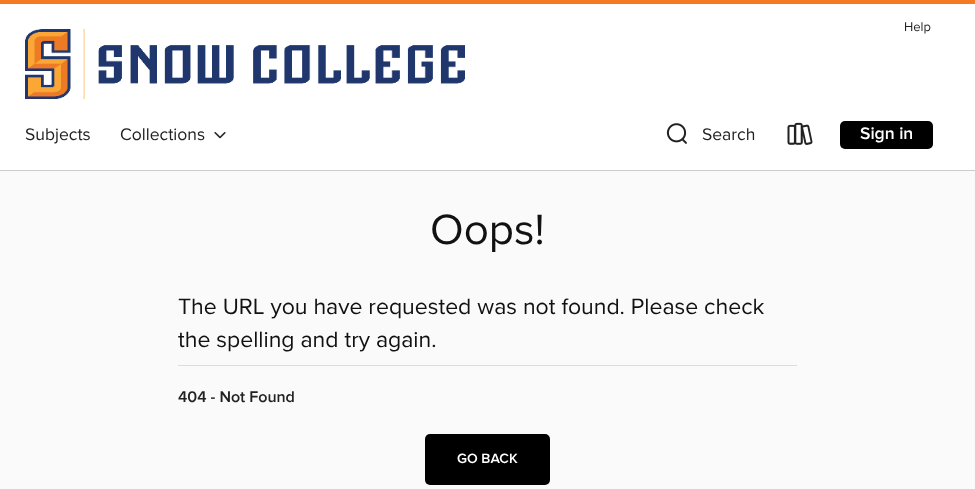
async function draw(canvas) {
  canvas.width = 975;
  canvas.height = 489;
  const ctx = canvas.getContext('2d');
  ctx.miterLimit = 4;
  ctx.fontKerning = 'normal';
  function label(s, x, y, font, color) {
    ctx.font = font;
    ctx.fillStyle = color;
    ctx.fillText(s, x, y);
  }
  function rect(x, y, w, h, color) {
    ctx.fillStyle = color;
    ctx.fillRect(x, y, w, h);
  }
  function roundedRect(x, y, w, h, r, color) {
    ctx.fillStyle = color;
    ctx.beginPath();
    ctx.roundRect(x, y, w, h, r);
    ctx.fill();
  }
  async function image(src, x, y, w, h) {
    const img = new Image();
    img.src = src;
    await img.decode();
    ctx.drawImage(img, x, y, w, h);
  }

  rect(0, 0, 975, 489, '#fafafa');
  rect(0, 4, 975, 166, '#fff');
  rect(0, 0, 975, 4, '#f47920');
  rect(0, 170, 975, 1, '#ccc');
  await image('assets/img1.png', 25, 29, 440, 70);
  label('Help', 904, 31, '13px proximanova', '#222');
  label('Subjects', 25, 140, '17.5px proximanova', '#222');
  label('Collections', 120, 140, '17.5px proximanova', '#222');
  await image('assets/img2.png', 214, 132, 12, 7);
  await image('assets/img3.png', 666, 123, 21, 21);
  label('Search', 702, 140, '17.5px proximanova', '#222');
  await image('assets/img4.png', 787, 122, 26, 23);
  roundedRect(840, 121, 93, 28, 5, '#000');
  label('Sign in', 860, 139, '600 17.5px Proxima Nova', '#fff');
  label('Oops!', 430, 244, '44px proximanova', '#111');
  label('The URL you have requested was not found. Please check', 178, 314, '23px proximanova', '#111');
  label('the spelling and try again.', 178, 347, '23px proximanova', '#111');
  rect(178, 365, 619, 1, '#ddd');
  label('404 - Not Found', 178, 402, '600 16px Proxima Nova', '#222');
  roundedRect(425, 434, 125, 51, 5, '#000');
  label('GO BACK', 457, 463, '600 14px Proxima Nova', '#fff');
}

draw(document.querySelector('canvas'));
